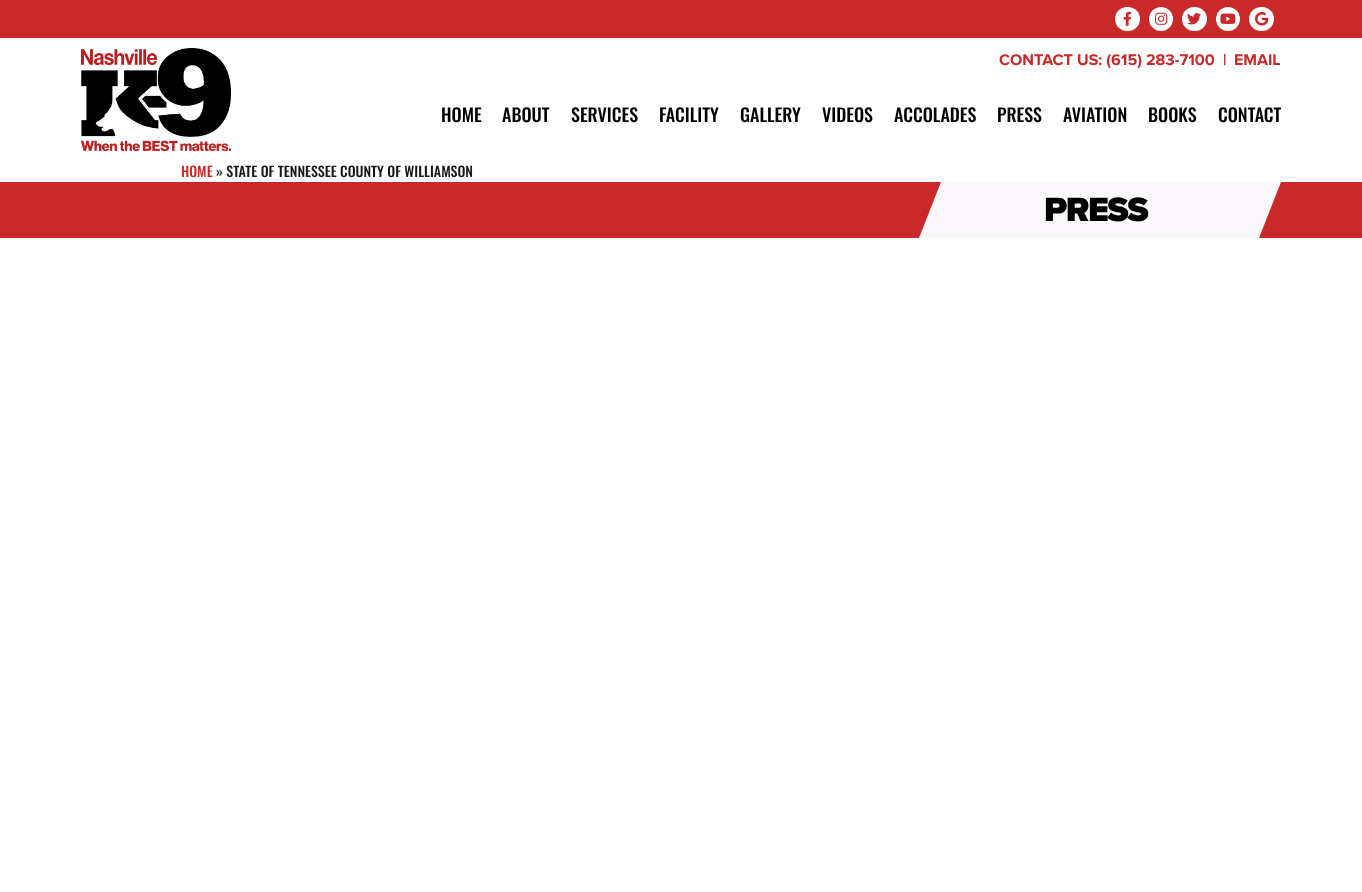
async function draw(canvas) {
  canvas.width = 1362;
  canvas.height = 892;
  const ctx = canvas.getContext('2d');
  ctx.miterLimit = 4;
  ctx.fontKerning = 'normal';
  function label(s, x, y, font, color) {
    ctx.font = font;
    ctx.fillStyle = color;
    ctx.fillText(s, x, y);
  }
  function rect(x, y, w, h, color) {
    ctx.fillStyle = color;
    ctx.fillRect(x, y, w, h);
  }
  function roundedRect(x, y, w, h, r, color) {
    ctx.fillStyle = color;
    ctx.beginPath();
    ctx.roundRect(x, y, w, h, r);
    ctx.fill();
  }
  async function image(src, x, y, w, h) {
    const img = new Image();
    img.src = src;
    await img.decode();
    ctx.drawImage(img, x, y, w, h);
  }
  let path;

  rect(0, 0, 1362, 892, '#fff');
  rect(0, 0, 1362, 38, '#ca2929');
  roundedRect(1115, 7, 25, 24, 12, '#fff');
  await image('assets/img1.png', 1123, 11, 9, 15);
  ctx.beginPath();
  ctx.arc(1161, 19, 12, 0, 2 * Math.PI);
  ctx.fill();
  await image('assets/img2.png', 1155, 12, 13, 13);
  roundedRect(1182, 7, 25, 24, 12, '#fff');
  await image('assets/img3.png', 1187, 13, 14, 12);
  ctx.beginPath();
  ctx.arc(1228, 19, 12, 0, 2 * Math.PI);
  ctx.fill();
  await image('assets/img4.png', 1220, 13, 16, 11);
  roundedRect(1249, 7, 25, 24, 12, '#fff');
  await image('assets/img5.png', 1255, 12, 14, 14);
  await image('assets/img6.png', 81, 48, 150, 103);
  label('CONTACT US: (615) 283-7100', 999, 65, 'bold 16px Proxima Nova', '#ca2929');
  label('|', 1223, 65, 'bold 16px Proxima Nova', '#ca2929');
  label('EMAIL', 1234, 65, 'bold 16px Proxima Nova', '#ca2929');
  label('HOME', 441, 122, '500 18px Oswald', '#000');
  label('ABOUT', 502, 122, '500 18px Oswald', '#000');
  label('SERVICES', 571, 122, '500 18px Oswald', '#000');
  label('FACILITY', 659, 122, '500 18px Oswald', '#000');
  label('GALLERY', 740, 122, '500 18px Oswald', '#000');
  label('VIDEOS', 822, 122, '500 18px Oswald', '#000');
  label('ACCOLADES', 894, 122, '500 18px Oswald', '#000');
  label('PRESS', 997, 122, '500 18px Oswald', '#000');
  label('AVIATION', 1063, 122, '500 18px Oswald', '#000');
  label('BOOKS', 1148, 122, '500 18px Oswald', '#000');
  label('CONTACT', 1218, 122, '500 18px Oswald', '#000');
  label('HOME', 181, 177, '500 14px Oswald', '#ca2929');
  label('» STATE OF TENNESSEE COUNTY OF WILLIAMSON', 216, 177, '500 14px Oswald', '#181818');
  rect(0, 182, 1362, 56, '#ca2929');
  ctx.fillStyle = '#faf8fa';
  path = new Path2D('M1281 182L1259 238H919L941 182Z');
  ctx.fill(path);
  ctx.letterSpacing = '-1.5px';
  label('PRESS', 1044, 221, '900 35px Proxima Nova', '#000');
}

draw(document.querySelector('canvas'));
